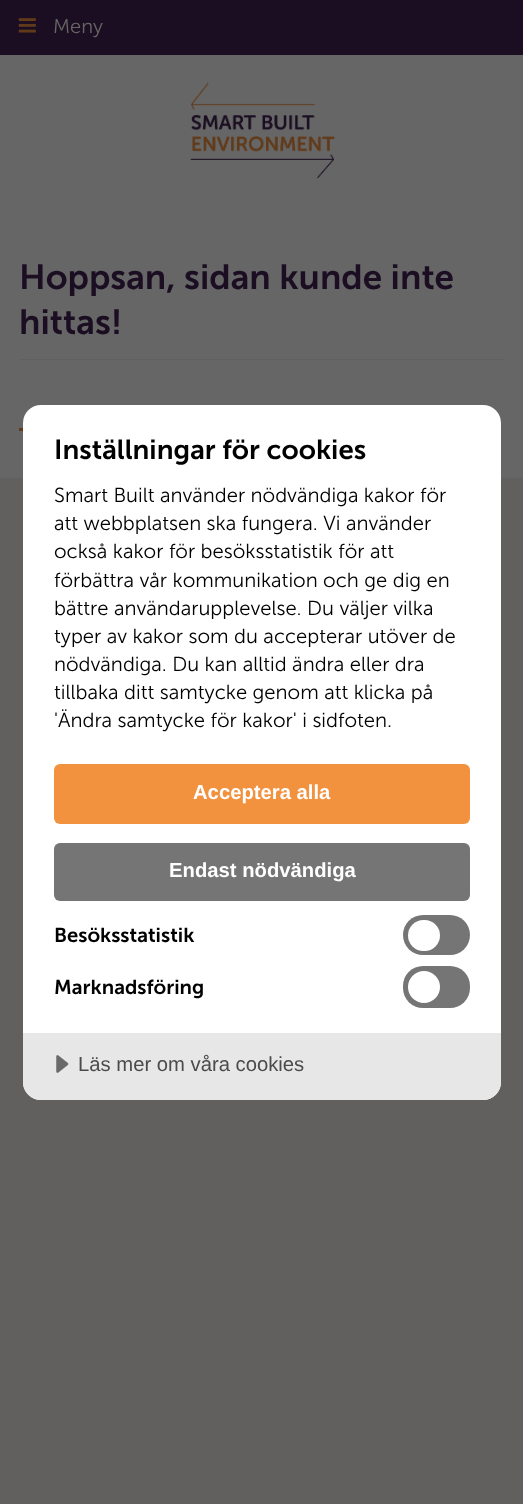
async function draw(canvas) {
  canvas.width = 523;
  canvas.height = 1504;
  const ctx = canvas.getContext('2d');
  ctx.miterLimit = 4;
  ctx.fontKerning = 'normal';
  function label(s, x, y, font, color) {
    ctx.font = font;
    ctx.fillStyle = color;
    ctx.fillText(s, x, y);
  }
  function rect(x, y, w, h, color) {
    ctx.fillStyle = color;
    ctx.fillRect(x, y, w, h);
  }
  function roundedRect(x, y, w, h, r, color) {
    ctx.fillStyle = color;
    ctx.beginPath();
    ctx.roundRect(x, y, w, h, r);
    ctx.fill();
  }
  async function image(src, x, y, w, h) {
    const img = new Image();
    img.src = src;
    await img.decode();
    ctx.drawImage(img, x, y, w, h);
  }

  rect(0, 0, 523, 1504, '#61605f');
  rect(0, 55, 523, 423, '#666');
  rect(0, 0, 523, 55, '#1c0e22');
  await image('assets/img1.png', 18, 18, 18, 15);
  label('Meny', 53, 33, '300 20px Museo Sans', '#666');
  await image('assets/img2.png', 190, 82, 145, 97);
  rect(19, 359, 486, 1, '#61605f');
  label('Hoppsan, sidan kunde inte', 19, 289, '600 35px Museo Sans', '#1c0e22');
  label('hittas!', 19, 334, '600 35px Museo Sans', '#1c0e22');
  rect(19, 428, 4, 3, '#613b19');
  roundedRect(23, 405, 478, 695, 18, '#fff');
  label('Inställningar för cookies', 54, 459, '600 27.5px Museo Sans', '#000');
  label('Smart Built använder nödvändiga kakor för', 54, 502, '300 20.25px Museo Sans', '#000');
  label('att webbplatsen ska fungera. Vi använder', 54, 530, '300 20.25px Museo Sans', '#000');
  label('också kakor för besöksstatistik för att', 54, 558, '300 20.25px Museo Sans', '#000');
  label('förbättra vår kommunikation och ge dig en', 54, 587, '300 20.25px Museo Sans', '#000');
  label('bättre användarupplevelse. Du väljer vilka', 54, 615, '300 20.25px Museo Sans', '#000');
  label('typer av kakor som du accepterar utöver de', 54, 643, '300 20.25px Museo Sans', '#000');
  label('nödvändiga. Du kan alltid ändra eller dra', 54, 671, '300 20.25px Museo Sans', '#000');
  label('tillbaka ditt samtycke genom att klicka på', 54, 699, '300 20.25px Museo Sans', '#000');
  label('\'Ändra samtycke för kakor\' i sidfoten.', 54, 727, '300 20.25px Museo Sans', '#000');
  roundedRect(54, 764, 416, 60, 6, '#f2923f');
  label('Acceptera alla', 193, 799, 'bold 20.25px Liberation Sans', '#fff');
  roundedRect(54, 843, 416, 58, 6, '#757575');
  label('Endast nödvändiga', 169, 877, 'bold 20.25px Liberation Sans', '#fff');
  label('Besöksstatistik', 54, 942, '600 20.25px Museo Sans', '#000');
  roundedRect(403, 915, 67, 40, 20, '#757575');
  roundedRect(408, 920, 32, 31, 15.5, '#fff');
  label('Marknadsföring', 54, 994, '600 20.25px Museo Sans', '#000');
  roundedRect(403, 966, 67, 42, 20, '#757575');
  ctx.fillStyle = '#fff';
  ctx.beginPath();
  ctx.arc(424, 987, 16, 0, 2 * Math.PI);
  ctx.fill();
  ctx.fillStyle = '#e7e7e7';
  ctx.beginPath();
  ctx.roundRect(23, 1033, 478, 67, [0, 0, 18, 18]);
  ctx.fill();
  await image('assets/img3.png', 56, 1055, 13, 18);
  label('Läs mer om våra cookies', 78, 1071, '20.25px Liberation Sans', '#4b4b4b');
}

draw(document.querySelector('canvas'));
